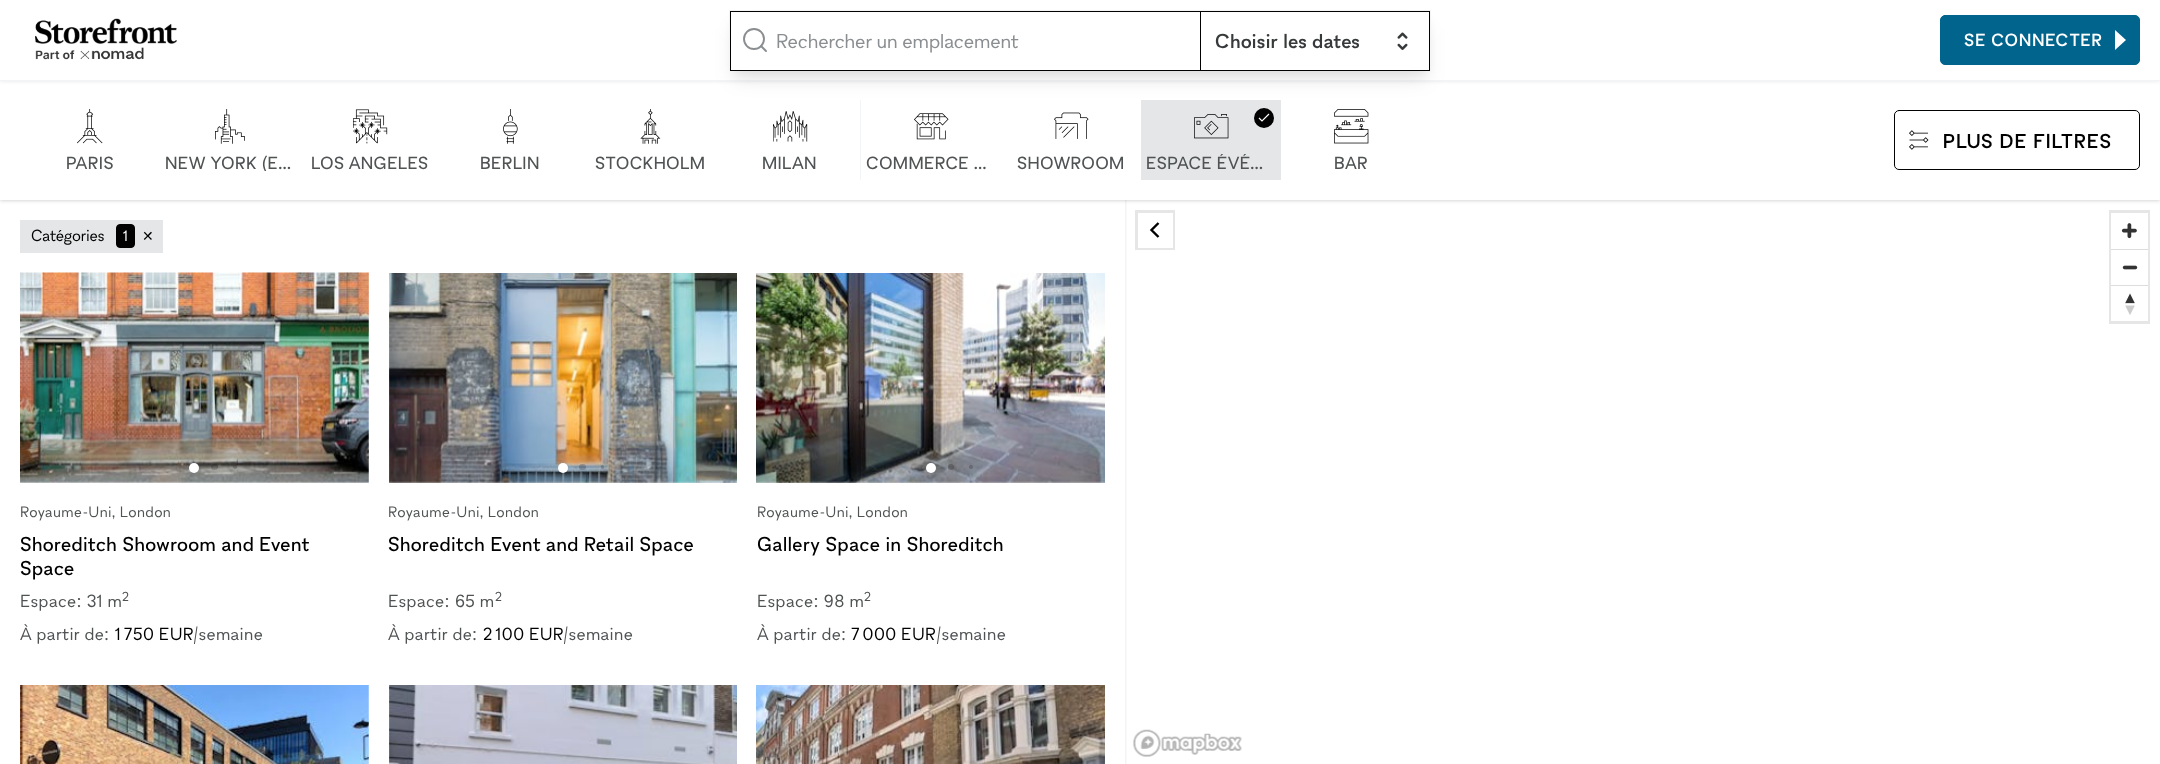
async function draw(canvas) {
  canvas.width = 2160;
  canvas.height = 764;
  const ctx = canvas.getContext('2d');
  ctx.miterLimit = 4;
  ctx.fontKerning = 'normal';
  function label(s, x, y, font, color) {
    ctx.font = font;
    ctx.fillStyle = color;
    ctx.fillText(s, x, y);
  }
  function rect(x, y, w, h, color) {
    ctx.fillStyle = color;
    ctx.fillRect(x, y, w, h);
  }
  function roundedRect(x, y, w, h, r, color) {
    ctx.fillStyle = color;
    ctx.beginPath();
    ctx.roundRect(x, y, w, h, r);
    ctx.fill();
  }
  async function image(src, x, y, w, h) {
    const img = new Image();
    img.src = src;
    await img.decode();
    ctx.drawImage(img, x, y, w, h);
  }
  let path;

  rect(0, 0, 2160, 764, '#fff');
  ctx.fillStyle = '#0000000f';
  ctx.filter = 'blur(1px)';
  ctx.beginPath();
  ctx.rect(0, 81, 2160, 120);
  ctx.fill();
  ctx.filter = 'none';
  ctx.fillStyle = '#0000001a';
  ctx.filter = 'blur(2px)';
  ctx.beginPath();
  ctx.rect(0, 81, 2160, 120);
  ctx.fill();
  ctx.filter = 'none';
  ctx.save();
  ctx.beginPath();
  ctx.rect(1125, 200, 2, 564);
  ctx.clip();
  ctx.filter = 'blur(2px)';
  ctx.beginPath();
  ctx.rect(0, 1, 1125, 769);
  ctx.fill();
  ctx.filter = 'none';
  ctx.restore();
  rect(0, 81, 2160, 119, '#fff');
  ctx.fillStyle = '#0000001a';
  ctx.filter = 'blur(2px)';
  ctx.beginPath();
  ctx.rect(0, 1, 2160, 80);
  ctx.fill();
  ctx.filter = 'none';
  ctx.strokeStyle = '#f3f4f5';
  ctx.strokeRect(-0.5, -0.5, 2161, 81);
  rect(0, 0, 2160, 80, '#fff');
  ctx.fillStyle = '#0000000d';
  ctx.filter = 'blur(4px)';
  ctx.beginPath();
  ctx.rect(733, 19, 695, 54);
  ctx.fill();
  ctx.filter = 'none';
  rect(860, 100, 1, 80, '#f3f4f5');
  rect(1141, 100, 140, 80, '#e4e6e7');
  ctx.fillStyle = '#020203';
  ctx.beginPath();
  ctx.arc(1264, 118, 10, 0, 2 * Math.PI);
  ctx.fill();
  ctx.fillStyle = '#0000001a';
  ctx.filter = 'blur(9.5px)';
  ctx.beginPath();
  ctx.rect(734, 28, 692, 51);
  ctx.fill();
  ctx.filter = 'none';
  ctx.strokeRect(729.5, 10.5, 701, 60);
  rect(731, 13, 469, 57, '#fff');
  ctx.strokeStyle = '#020203';
  ctx.strokeRect(730.5, 11.5, 470, 59);
  ctx.beginPath();
  ctx.arc(754, 39, 10, 0, 2 * Math.PI);
  ctx.strokeStyle = '#8a8e90';
  ctx.lineWidth = 1.9;
  ctx.stroke();
  path = new Path2D('M766 51L761 46');
  ctx.lineCap = 'round';
  ctx.lineJoin = 'round';
  ctx.stroke(path);
  label('Rechercher un emplacement', 776, 48, '300 20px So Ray', '#8a8e90');
  rect(1201, 13, 228, 57, '#fff');
  ctx.strokeStyle = '#020203';
  ctx.lineWidth = 1;
  ctx.lineJoin = 'miter';
  ctx.strokeRect(1200.5, 11.5, 229, 59);
  ctx.letterSpacing = '0.6px';
  label('Choisir les dates', 1215, 48, '20px "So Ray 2"', '#373a3b');
  await image('assets/img1.png', 1397, 32, 11, 18);
  await image('assets/img2.png', 35, 18, 142, 26);
  await image('assets/img3.png', 35, 47, 109, 13);
  ctx.fillStyle = '#00648c';
  ctx.beginPath();
  ctx.roundRect(1940.5, 15.5, 199, 49, 4.5);
  ctx.fill();
  ctx.strokeStyle = '#00648c';
  ctx.stroke();
  ctx.letterSpacing = '1px';
  label('SE CONNECTER', 1964, 46, '17.5px "So Ray 2"', '#fff');
  path = new Path2D('M2115 30L2126 40L2115 50');
  ctx.fill(path);
  ctx.beginPath();
  ctx.roundRect(1894.5, 110.5, 245, 59, 4.5);
  ctx.strokeStyle = '#020203';
  ctx.stroke();
  await image('assets/img4.png', 1909, 130, 20, 20);
  ctx.letterSpacing = '1.25px';
  label('PLUS DE FILTRES', 1943, 148, '20px "So Ray 2"', '#000');
  await image('assets/img5.png', 77, 109, 26, 35);
  ctx.letterSpacing = '0.5px';
  label('PARIS', 66, 169, '17.5px So Ray', '#505354');
  await image('assets/img6.png', 215, 109, 30, 35);
  ctx.save();
  ctx.beginPath();
  ctx.rect(160, 154, 140, 17);
  ctx.clip();
  label('NEW YORK (E…', 165, 169, '17.5px So Ray', '#505354');
  ctx.restore();
  await image('assets/img7.png', 353, 109, 35, 35);
  label('LOS ANGELES', 311, 169, '17.5px So Ray', '#505354');
  await image('assets/img8.png', 503, 109, 15, 35);
  label('BERLIN', 480, 169, '17.5px So Ray', '#505354');
  await image('assets/img9.png', 640, 109, 21, 35);
  label('STOCKHOLM', 595, 169, '17.5px So Ray', '#505354');
  await image('assets/img10.png', 773, 111, 35, 31);
  label('MILAN', 762, 169, '17.5px So Ray', '#505354');
  await image('assets/img11.png', 914, 113, 35, 27);
  label('COMMERCE …', 866, 169, '17.5px So Ray', '#505354');
  await image('assets/img12.png', 1054, 112, 35, 27);
  label('SHOWROOM', 1017, 169, '17.5px So Ray', '#505354');
  await image('assets/img13.png', 1194, 114, 35, 25);
  path = new Path2D('M1259 118L1262 121L1269 114');
  ctx.strokeStyle = '#fff';
  ctx.lineWidth = 1.2;
  ctx.lineCap = 'butt';
  ctx.stroke(path);
  ctx.save();
  ctx.beginPath();
  ctx.rect(1141, 154, 140, 17);
  ctx.clip();
  label('ESPACE ÉVÉ…', 1146, 169, '17.5px So Ray', '#505354');
  ctx.restore();
  await image('assets/img14.png', 1334, 109, 35, 35);
  label('BAR', 1334, 169, '17.5px So Ray', '#505354');
  rect(20, 220, 143, 33, '#e4e6e7');
  ctx.letterSpacing = '0px';
  label('Catégories', 31, 241, '300 16px So Ray', '#000');
  ctx.fillStyle = '#020203';
  ctx.beginPath();
  ctx.roundRect(116.5, 224.5, 18, 23, 3.5);
  ctx.fill();
  ctx.strokeStyle = '#020203';
  ctx.lineWidth = 1;
  ctx.stroke();
  label('1', 123, 241, '300 15px So Ray', '#fff');
  label('✕', 142, 241, '14px DejaVu Sans', '#000');
  rect(20, 273, 349, 210, '#f3f4f5');
  await image('assets/img15.png', 20, 272, 349, 211);
  ctx.fillStyle = '#fff';
  ctx.beginPath();
  ctx.arc(194, 468, 5, 0, 2 * Math.PI);
  ctx.fill();
  roundedRect(211, 464, 7, 6, 3, '#00000033');
  ctx.beginPath();
  ctx.arc(235, 467, 2, 0, 2 * Math.PI);
  ctx.fill();
  ctx.letterSpacing = '0.5px';
  label('Royaume-Uni, London', 20, 517, '300 15px So Ray', '#505354');
  ctx.letterSpacing = '0.6px';
  label('Shoreditch Showroom and Event', 20, 551, '20px So Ray', '#000');
  label('Space', 20, 575, '20px So Ray', '#000');
  ctx.letterSpacing = '0.5px';
  label('Espace:', 20, 607, '300 17.5px So Ray', '#505354');
  label('31 m', 87, 607, '300 17.5px So Ray', '#505354');
  label('2', 122, 601, '300 13px So Ray', '#505354');
  label('À partir de:', 20, 640, '300 17.5px So Ray', '#505354');
  label('1 750 EUR', 115, 640, '300 17.5px So Ray', '#000');
  label('/semaine', 194, 640, '300 17.5px So Ray', '#505354');
  rect(389, 273, 347, 210, '#f3f4f5');
  await image('assets/img16.png', 389, 273, 348, 210);
  ctx.fillStyle = '#fff';
  ctx.beginPath();
  ctx.arc(563, 468, 5, 0, 2 * Math.PI);
  ctx.fill();
  roundedRect(579, 464, 7, 6, 3, '#00000033');
  roundedRect(601, 465, 3, 4, 1.5, '#00000033');
  label('Royaume-Uni, London', 388, 517, '300 15px So Ray', '#505354');
  ctx.letterSpacing = '0.6px';
  label('Shoreditch Event and Retail Space', 388, 551, '20px So Ray', '#000');
  ctx.letterSpacing = '0.5px';
  label('Espace:', 388, 607, '300 17.5px So Ray', '#505354');
  label('65 m', 455, 607, '300 17.5px So Ray', '#505354');
  label('2', 495, 601, '300 13px So Ray', '#505354');
  label('À partir de:', 388, 640, '300 17.5px So Ray', '#505354');
  label('2 100 EUR', 483, 640, '300 17.5px So Ray', '#000');
  label('/semaine', 564, 640, '300 17.5px So Ray', '#505354');
  rect(756, 481, 349, 2, '#f3f4f5');
  await image('assets/img17.png', 756, 273, 349, 210);
  ctx.fillStyle = '#fff';
  ctx.beginPath();
  ctx.arc(931, 468, 5, 0, 2 * Math.PI);
  ctx.fill();
  ctx.fillStyle = '#00000033';
  ctx.beginPath();
  ctx.arc(951, 467, 3, 0, 2 * Math.PI);
  ctx.fill();
  ctx.beginPath();
  ctx.arc(971, 467, 2, 0, 2 * Math.PI);
  ctx.fill();
  label('Royaume-Uni, London', 757, 517, '300 15px So Ray', '#505354');
  ctx.letterSpacing = '0.6px';
  label('Gallery Space in Shoreditch', 757, 551, '20px So Ray', '#000');
  ctx.letterSpacing = '0.5px';
  label('Espace:', 757, 607, '300 17.5px So Ray', '#505354');
  label('98 m', 824, 607, '300 17.5px So Ray', '#505354');
  label('2', 864, 601, '300 13px So Ray', '#505354');
  label('À partir de:', 757, 640, '300 17.5px So Ray', '#505354');
  label('7 000 EUR', 851, 640, '300 17.5px So Ray', '#000');
  label('/semaine', 937, 640, '300 17.5px So Ray', '#505354');
  await image('assets/img18.png', 20, 685, 349, 79);
  await image('assets/img19.png', 389, 685, 348, 79);
  await image('assets/img20.png', 756, 685, 349, 79);
  ctx.strokeStyle = '#e6e6e6';
  ctx.lineWidth = 3;
  ctx.strokeRect(2110.5, 211.5, 38, 111);
  rect(2111, 213, 37, 108, '#fff');
  await image('assets/img21.png', 2121, 223, 16, 16);
  rect(2111, 249, 37, 1, '#ddd');
  await image('assets/img22.png', 2122, 265, 16, 5);
  rect(2111, 285, 37, 1, '#ddd');
  await image('assets/img23.png', 2125, 293, 10, 22);
  await image('assets/img24.png', 1133, 729, 109, 28);
  ctx.strokeRect(1136.5, 211.5, 37, 37);
  rect(1138, 213, 35, 35, '#fff');
  path = new Path2D('M1158.5 223L1151.5 230L1158.5 237');
  ctx.strokeStyle = '#000';
  ctx.lineWidth = 2.4;
  ctx.stroke(path);
}

draw(document.querySelector('canvas'));
